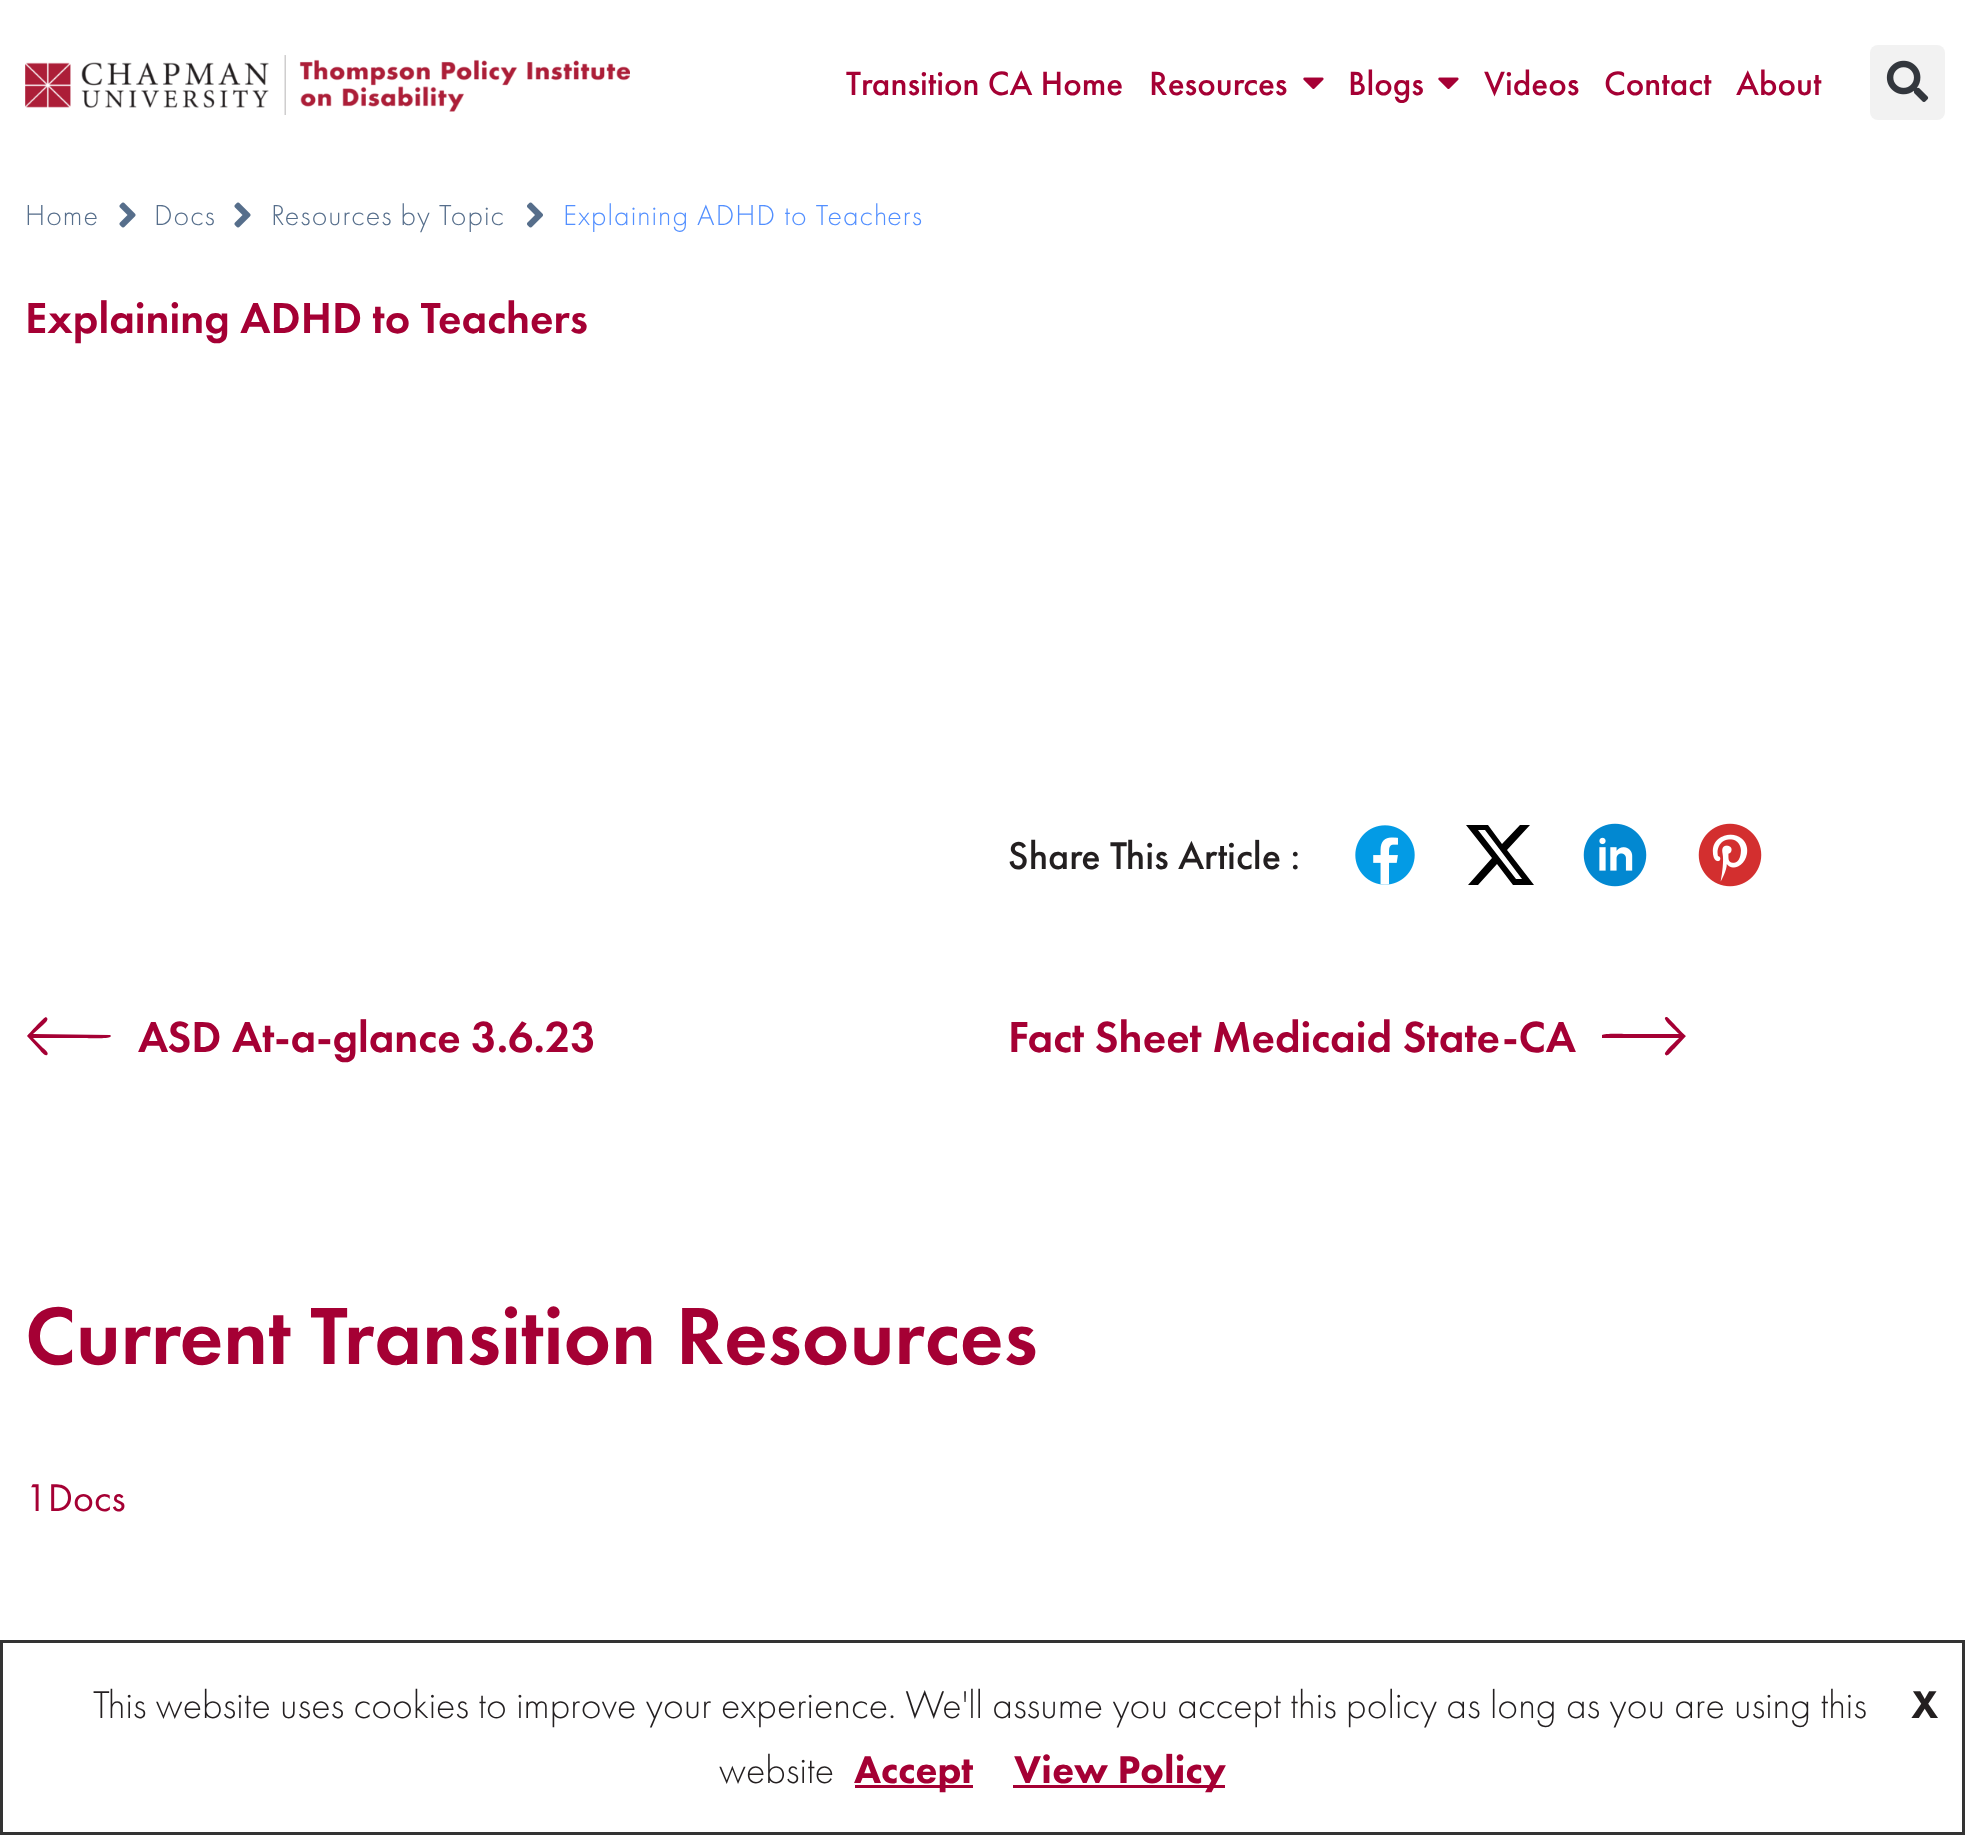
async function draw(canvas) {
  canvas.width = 1965;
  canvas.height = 1835;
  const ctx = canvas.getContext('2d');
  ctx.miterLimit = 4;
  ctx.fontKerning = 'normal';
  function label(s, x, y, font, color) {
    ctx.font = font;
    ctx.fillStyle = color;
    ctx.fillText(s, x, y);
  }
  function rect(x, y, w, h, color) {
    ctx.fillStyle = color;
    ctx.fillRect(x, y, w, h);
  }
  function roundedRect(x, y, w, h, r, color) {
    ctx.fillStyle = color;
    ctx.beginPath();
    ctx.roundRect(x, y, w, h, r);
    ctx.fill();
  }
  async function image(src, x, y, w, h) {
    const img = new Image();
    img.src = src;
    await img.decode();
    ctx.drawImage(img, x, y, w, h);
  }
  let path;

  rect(0, 0, 1965, 1835, '#fff');
  await image('assets/img1.png', 25, 55, 605, 60);
  label('Transition CA Home', 846, 95, '500 35px "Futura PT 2"', '#a50034');
  label('Resources', 1149, 95, '500 35px "Futura PT 2"', '#a50034');
  await image('assets/img2.png', 1303, 77, 21, 12);
  label('Blogs', 1348, 95, '500 35px "Futura PT 2"', '#a50034');
  await image('assets/img2.png', 1438, 77, 21, 12);
  label('Videos', 1484, 95, '500 35px "Futura PT 2"', '#a50034');
  label('Contact', 1604, 95, '500 35px "Futura PT 2"', '#a50034');
  label('About', 1736, 95, '500 35px "Futura PT 2"', '#a50034');
  roundedRect(1870, 45, 75, 75, 8, '#f2f2f2');
  await image('assets/img3.png', 1886, 60, 43, 42);
  ctx.letterSpacing = '1.05px';
  label('Home', 25, 225, '300 30px Futura PT', '#566e8b');
  await image('assets/img4.png', 119, 202, 17, 26);
  label('Docs', 154, 225, '300 30px Futura PT', '#566e8b');
  await image('assets/img4.png', 234, 202, 17, 26);
  label('Resources by Topic', 271, 225, '300 30px Futura PT', '#566e8b');
  await image('assets/img5.png', 527, 202, 16, 26);
  label('Explaining ADHD to Teachers', 563, 225, '300 30px Futura PT', '#528fff');
  ctx.letterSpacing = '0px';
  label('Explaining ADHD to Teachers', 25, 333, '500 45px Futura PT', '#a50034');
  label('Share This Article :', 1008, 869, '500 40px "Futura PT 2"', '#231f20');
  await image('assets/img6.png', 1355, 825, 60, 60);
  ctx.fillStyle = '#000';
  path = new Path2D('M1520 825H1530L1507 850L1534 885H1513L1497 864L1478 885H1468L1492 858L1466 825H1488L1502 844ZM1516 879H1522L1485 830H1478Z');
  ctx.fill(path);
  await image('assets/img7.png', 1583, 823, 64, 64);
  await image('assets/img8.png', 1698, 823, 64, 64);
  ctx.fillStyle = '#a50034';
  path = new Path2D('M46 1017C44 1017 29 1034 27 1036L39 1049C40 1050 45 1057 47 1055C50 1053 43 1048 43 1048L33 1038H84C86 1038 109 1039 110 1037C111 1037 111 1035 110 1035L33 1034L43 1025C44 1024 49 1020 47 1018Z');
  ctx.fill(path);
  label('ASD At-a-glance 3.6.23', 138, 1052, '500 45px Futura PT', '#a50034');
  label('Fact Sheet Medicaid State-CA', 1008, 1052, '500 45px Futura PT', '#a50034');
  path = new Path2D('M1667 1017C1660 1017 1672 1027 1679 1034H1629C1626 1034 1604 1033 1602 1035C1602 1036 1602 1037 1602 1038H1679C1677 1040 1664 1052 1665 1054C1667 1059 1673 1049 1674 1049L1686 1036C1683 1034 1668 1017 1667 1017Z');
  ctx.fill(path);
  label('Current Transition Resources', 25, 1364, '500 84px Futura PT', '#a50034');
  label('1Docs', 25, 1511, '40px Futura PT', '#a50034');
  ctx.strokeStyle = '#333';
  ctx.lineWidth = 3;
  ctx.strokeRect(1.5, 1641.5, 1962, 192);
  label('This website uses cookies to improve your experience. We\'ll assume you accept this policy as long as you are using this', 93, 1718, '300 40px Futura PT', '#231f20');
  label('X', 1911, 1718, '900 40px Futura PT', '#231f20');
  label('website', 719, 1783, '300 40px Futura PT', '#231f20');
  rect(855, 1785, 118, 3, '#a50034');
  label('Accept', 854, 1783, '900 40px Futura PT', '#a50034');
  rect(1013, 1785, 212, 3, '#a50034');
  label('View Policy', 1014, 1783, '900 40px Futura PT', '#a50034');
}

draw(document.querySelector('canvas'));
